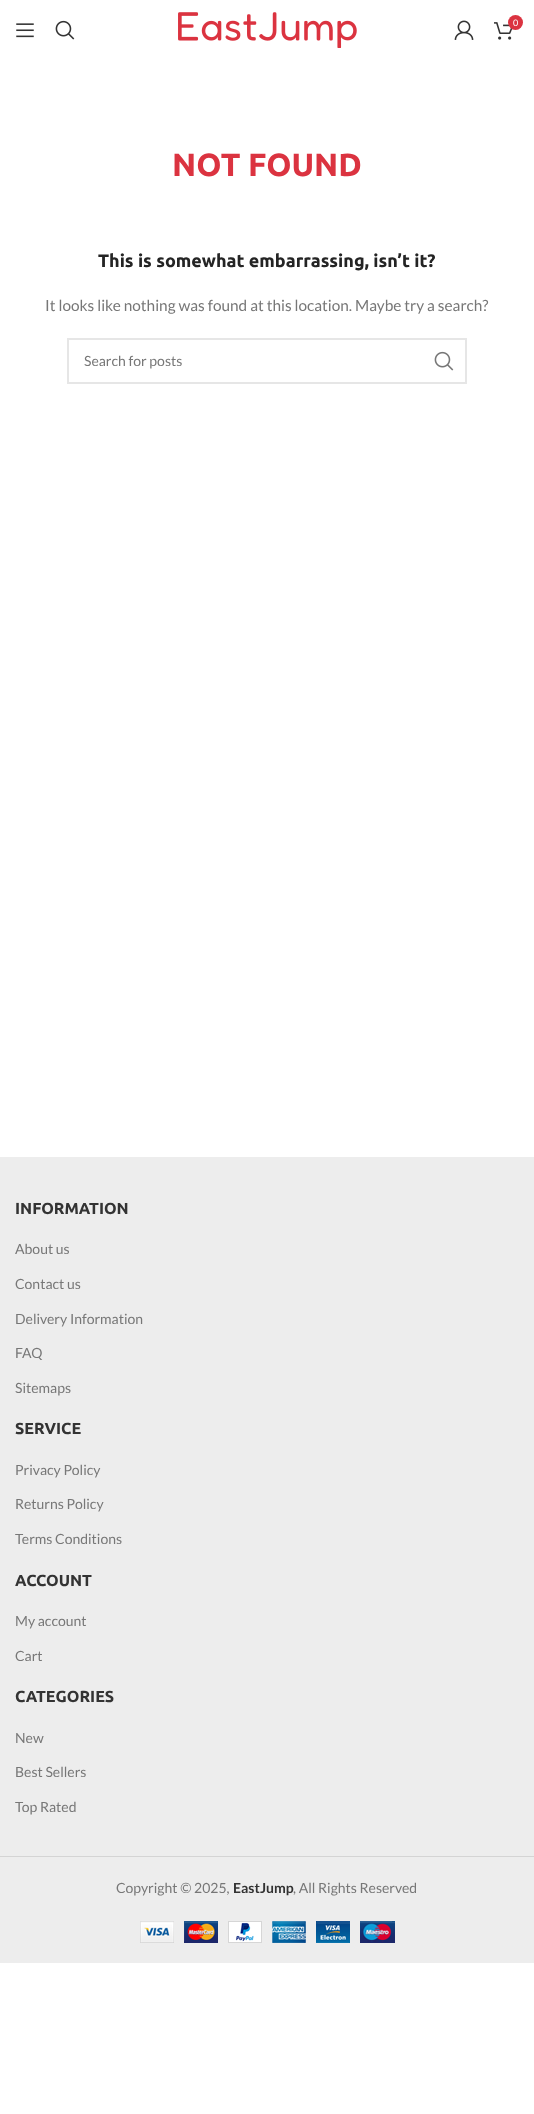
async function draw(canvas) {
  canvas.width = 534;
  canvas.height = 2114;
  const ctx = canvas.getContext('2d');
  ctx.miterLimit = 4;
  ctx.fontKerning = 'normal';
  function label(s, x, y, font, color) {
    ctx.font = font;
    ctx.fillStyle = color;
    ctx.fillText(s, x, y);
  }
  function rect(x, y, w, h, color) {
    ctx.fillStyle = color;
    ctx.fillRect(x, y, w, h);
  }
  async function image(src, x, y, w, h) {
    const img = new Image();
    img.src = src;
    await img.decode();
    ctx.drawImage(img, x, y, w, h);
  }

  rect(0, 0, 534, 2114, '#fff');
  await image('assets/img1.png', 16, 23, 18, 15);
  await image('assets/img2.png', 55, 20, 20, 20);
  await image('assets/img3.png', 178, 12, 179, 36);
  await image('assets/img4.png', 454, 20, 20, 20);
  await image('assets/img5.png', 494, 22, 19, 18);
  ctx.fillStyle = '#db3340';
  ctx.beginPath();
  ctx.arc(515.5, 22.5, 7.5, 0, 2 * Math.PI);
  ctx.fill();
  label('0', 513, 26, '9px Lato', '#fff');
  label('NOT FOUND', 172, 176, 'bold 32px Ubuntu', '#db3340');
  label('This is somewhat embarrassing, isn’t it?', 98, 267, 'bold 18px Ubuntu', '#242424');
  label('It looks like nothing was found at this location. Maybe try a search?', 45, 311, '15.4px Lato', '#777');
  ctx.strokeStyle = '#e6e6e6';
  ctx.lineWidth = 2;
  ctx.strokeRect(68, 339, 398, 44);
  label('Search for posts', 84, 366, '14px Lato', '#777');
  await image('assets/img6.png', 434, 351, 20, 20);
  rect(0, 1157, 534, 806, '#ededed');
  label('INFORMATION', 15, 1214, 'bold 16px Ubuntu', '#333');
  label('About us', 15, 1254, '14px Lato', '#777');
  label('Contact us', 15, 1289, '14px Lato', '#777');
  label('Delivery Information', 15, 1324, '14px Lato', '#777');
  label('FAQ', 15, 1358, '14px Lato', '#777');
  label('Sitemaps', 15, 1393, '14px Lato', '#777');
  label('SERVICE', 15, 1434, 'bold 16px Ubuntu', '#333');
  label('Privacy Policy', 15, 1475, '14px Lato', '#777');
  label('Returns Policy', 15, 1509, '14px Lato', '#777');
  label('Terms Conditions', 15, 1544, '14px Lato', '#777');
  label('ACCOUNT', 15, 1586, 'bold 16px Ubuntu', '#333');
  label('My account', 15, 1626, '14px Lato', '#777');
  label('Cart', 15, 1661, '14px Lato', '#777');
  label('CATEGORIES', 15, 1702, 'bold 16px Ubuntu', '#333');
  label('New', 15, 1743, '14px Lato', '#777');
  label('Best Sellers', 15, 1777, '14px Lato', '#777');
  label('Top Rated', 15, 1812, '14px Lato', '#777');
  rect(0, 1856, 534, 1, '#d4d4d4');
  label('Copyright © 2025,', 116, 1893, '14px Lato', '#777');
  label('EastJump', 233, 1893, 'bold 14px Lato', '#333');
  label(', All Rights Reserved', 293, 1893, '14px Lato', '#777');
  await image('assets/img7.png', 140, 1921, 255, 22);
}

draw(document.querySelector('canvas'));
